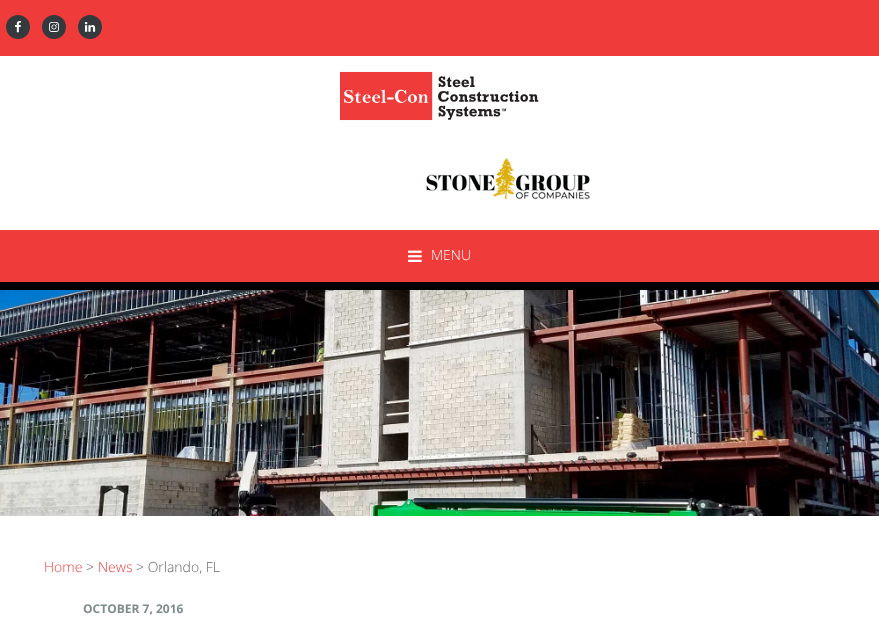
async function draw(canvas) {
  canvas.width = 879;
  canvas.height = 618;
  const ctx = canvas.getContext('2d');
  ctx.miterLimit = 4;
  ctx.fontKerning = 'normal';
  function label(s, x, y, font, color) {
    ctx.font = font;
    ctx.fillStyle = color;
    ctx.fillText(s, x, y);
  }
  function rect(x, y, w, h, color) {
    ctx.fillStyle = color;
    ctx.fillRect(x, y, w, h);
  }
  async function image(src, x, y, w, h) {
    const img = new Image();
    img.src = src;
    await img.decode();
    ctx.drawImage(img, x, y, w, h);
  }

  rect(0, 0, 879, 618, '#fff');
  rect(0, 0, 879, 56, '#ef3b39');
  ctx.fillStyle = '#34393e';
  ctx.beginPath();
  ctx.arc(18, 27, 12, 0, 2 * Math.PI);
  ctx.fill();
  await image('assets/img1.png', 15, 21, 6, 12);
  ctx.beginPath();
  ctx.arc(54, 27, 12, 0, 2 * Math.PI);
  ctx.fill();
  await image('assets/img2.png', 49, 22, 11, 10);
  ctx.beginPath();
  ctx.arc(90, 27, 12, 0, 2 * Math.PI);
  ctx.fill();
  await image('assets/img3.png', 84, 22, 12, 10);
  rect(0, 282, 879, 8, '#000');
  await image('assets/img4.png', 340, 71, 199, 50);
  await image('assets/img5.png', 426, 158, 164, 42);
  rect(0, 230, 879, 52, '#ef3b39');
  await image('assets/img6.png', 408, 250, 14, 12);
  label('MENU', 431, 260, '300 14px Open Sans', '#fff');
  await image('assets/img7.png', 0, 290, 879, 226);
  label('Home', 44, 572, '300 14px Open Sans', '#ef3b39');
  label('>', 86, 572, '300 14px Open Sans', '#666');
  label('News', 98, 572, '300 14px Open Sans', '#ef3b39');
  label('> Orlando, FL', 136, 572, '300 14px Open Sans', '#666');
  label('OCTOBER 7, 2016', 83, 613, 'bold 12px Open Sans', '#7f8c8d');
}

draw(document.querySelector('canvas'));
